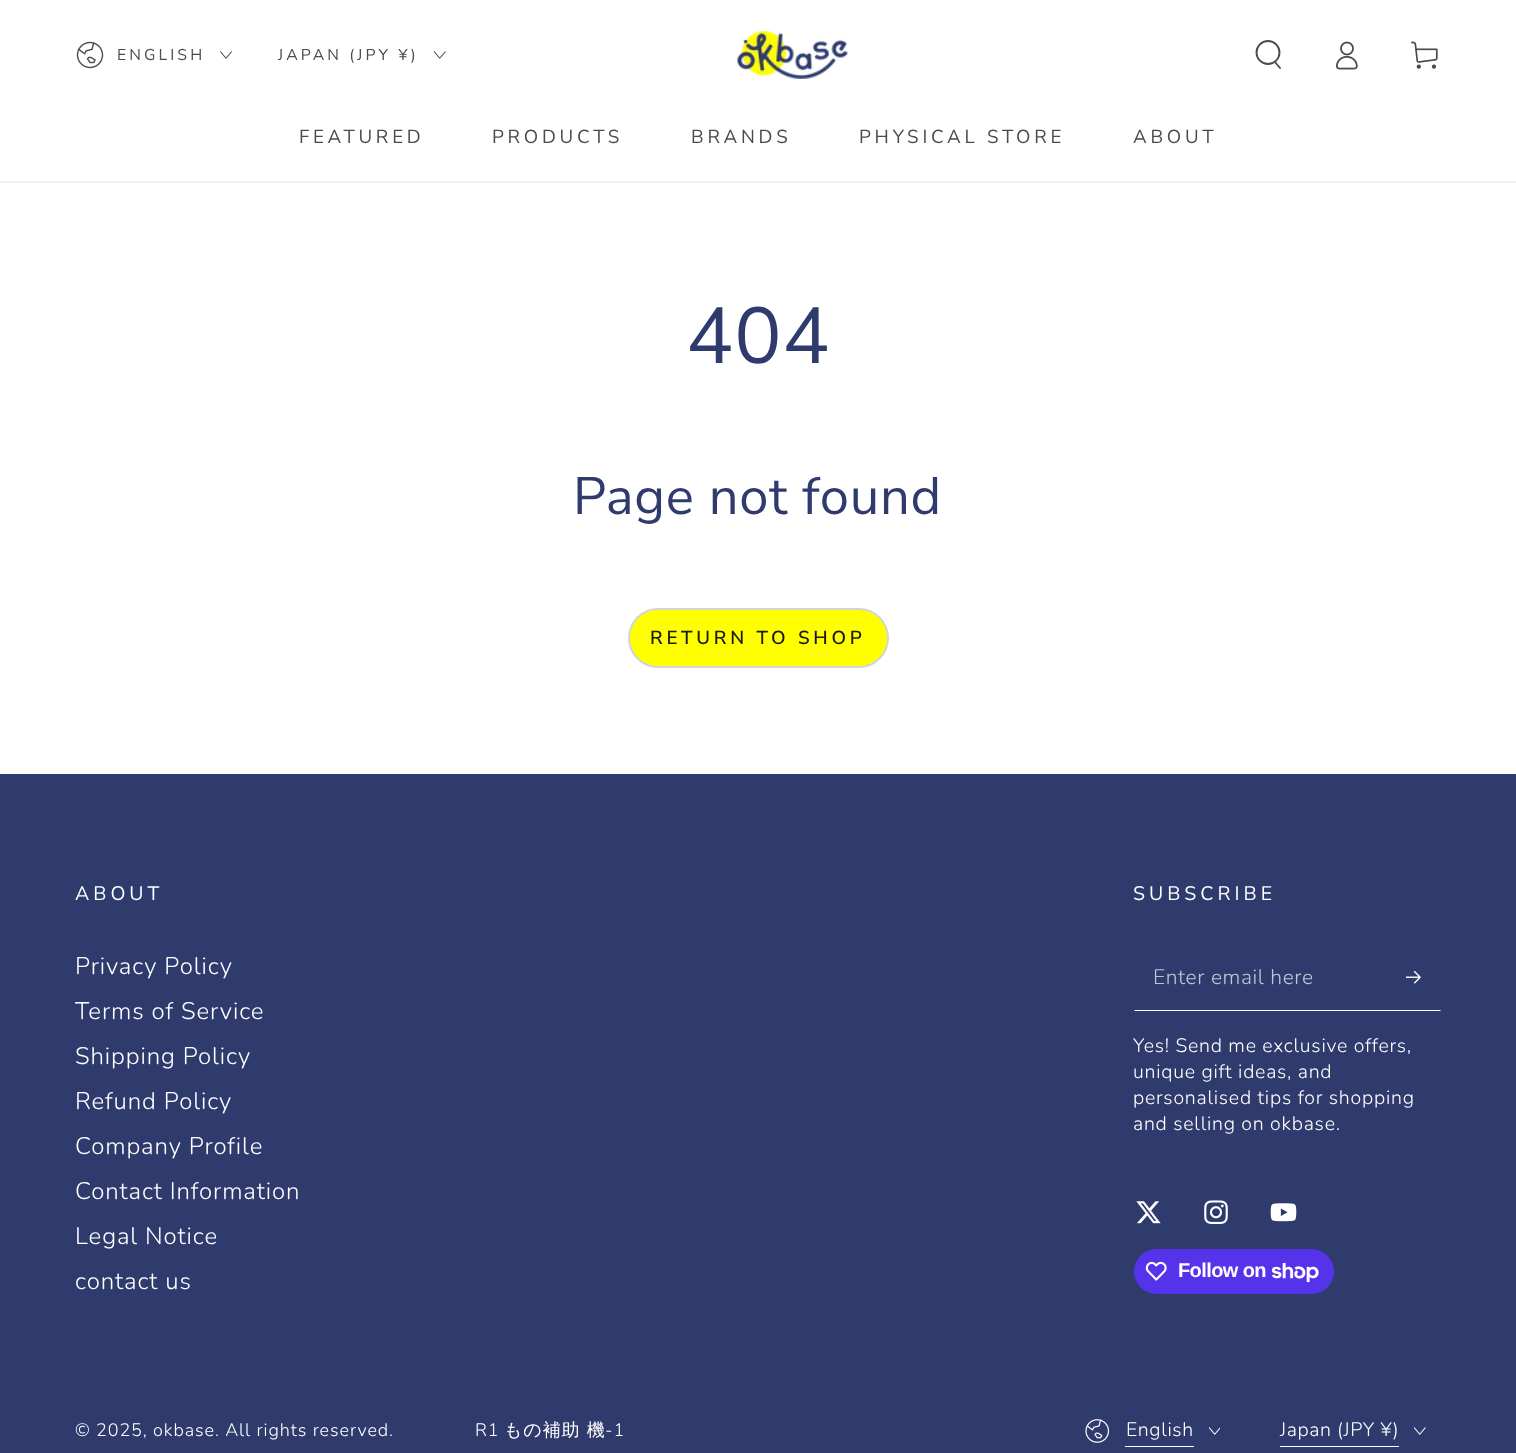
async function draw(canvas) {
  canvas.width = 1516;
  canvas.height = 1453;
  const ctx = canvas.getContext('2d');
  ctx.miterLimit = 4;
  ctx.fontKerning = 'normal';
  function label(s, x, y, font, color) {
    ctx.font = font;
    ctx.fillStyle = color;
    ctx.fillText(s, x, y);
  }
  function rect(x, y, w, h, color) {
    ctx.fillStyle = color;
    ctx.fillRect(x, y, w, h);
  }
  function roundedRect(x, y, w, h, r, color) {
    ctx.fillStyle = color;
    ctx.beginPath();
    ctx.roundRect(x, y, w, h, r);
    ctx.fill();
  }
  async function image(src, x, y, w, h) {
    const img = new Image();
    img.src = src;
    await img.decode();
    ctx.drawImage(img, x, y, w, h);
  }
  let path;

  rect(0, 0, 1516, 1453, '#fff');
  rect(0, 181, 1516, 2, '#f2f2f4');
  await image('assets/img1.png', 76, 41, 28, 28);
  ctx.letterSpacing = '3.1px';
  label('ENGLISH', 117, 60, '15.75px Nunito Sans', '#4b4b4b');
  await image('assets/img2.png', 220, 51, 12, 8);
  label('JAPAN (JPY ¥)', 278, 60, '15.75px Nunito Sans', '#4b4b4b');
  await image('assets/img3.png', 433, 51, 13, 8);
  await image('assets/img4.png', 737, 31, 111, 48);
  ctx.beginPath();
  ctx.arc(1268, 52.5, 11.5, 0, 2 * Math.PI);
  ctx.strokeStyle = '#4b4b4b';
  ctx.lineWidth = 1.9;
  ctx.stroke();
  path = new Path2D('M1275 62L1280 68');
  ctx.lineCap = 'round';
  ctx.stroke(path);
  await image('assets/img5.png', 1335, 41, 23, 29);
  await image('assets/img6.png', 1411, 41, 27, 28);
  ctx.letterSpacing = '3.75px';
  label('FEATURED', 299, 143, '18.75px Nunito Sans', '#4b4b4b');
  label('PRODUCTS', 492, 143, '18.75px Nunito Sans', '#4b4b4b');
  label('BRANDS', 691, 143, '18.75px Nunito Sans', '#4b4b4b');
  label('PHYSICAL STORE', 859, 143, '18.75px Nunito Sans', '#4b4b4b');
  label('ABOUT', 1133, 143, '18.75px Nunito Sans', '#4b4b4b');
  ctx.letterSpacing = '0.75px';
  label('404', 686, 363, '79px Nunito Sans', '#2f3b6d');
  label('Page not found', 573, 514, '52.5px Nunito Sans', '#2f3b6d');
  ctx.fillStyle = '#ff0';
  ctx.beginPath();
  ctx.roundRect(629, 609, 259, 58, 29);
  ctx.fill();
  ctx.strokeStyle = '#d2d5d9';
  ctx.lineWidth = 2;
  ctx.stroke();
  ctx.letterSpacing = '3.75px';
  label('RETURN TO SHOP', 650, 644, '600 18.75px Nunito Sans', '#1a1b18');
  rect(0, 774, 1516, 679, '#2f3b6d');
  ctx.letterSpacing = '4px';
  label('ABOUT', 75, 900, '19.5px Nunito Sans', '#fff');
  ctx.letterSpacing = '0.9px';
  label('Privacy Policy', 75, 974, '300 24px Nunito', '#fff');
  label('Terms of Service', 75, 1019, '300 24px Nunito', '#fff');
  label('Shipping Policy', 75, 1064, '300 24px Nunito', '#fff');
  label('Refund Policy', 75, 1109, '300 24px Nunito', '#fff');
  label('Company Profile', 75, 1154, '300 24px Nunito', '#fff');
  label('Contact Information', 75, 1199, '300 24px Nunito', '#fff');
  label('Legal Notice', 75, 1244, '300 24px Nunito', '#fff');
  label('contact us', 75, 1289, '300 24px Nunito', '#fff');
  ctx.letterSpacing = '4px';
  label('SUBSCRIBE', 1133, 900, '19.5px Nunito Sans', '#fff');
  path = new Path2D('M1441 1011H1134L1135 1010H1440Z');
  ctx.fill(path);
  ctx.letterSpacing = '0.6px';
  label('Enter email here', 1153, 984, '300 21px Nunito', '#c1c4d3');
  await image('assets/img7.png', 1406, 971, 15, 13);
  ctx.letterSpacing = '0.75px';
  label('Yes! Send me exclusive offers,', 1133, 1052, '300 19.5px Nunito', '#fff');
  label('unique gift ideas, and', 1133, 1078, '300 19.5px Nunito', '#fff');
  label('personalised tips for shopping', 1133, 1104, '300 19.5px Nunito', '#fff');
  label('and selling on okbase.', 1133, 1130, '300 19.5px Nunito', '#fff');
  await image('assets/img8.png', 1136, 1201, 25, 23);
  await image('assets/img9.png', 1204, 1200, 24, 25);
  await image('assets/img10.png', 1270, 1203, 27, 19);
  roundedRect(1134, 1249, 200, 45, 22.5, '#5433eb');
  await image('assets/img11.png', 1145, 1261, 22, 20);
  ctx.letterSpacing = '-0.6px';
  label('Follow on', 1178, 1277, 'bold 20px Liberation Sans', '#fff');
  await image('assets/img12.png', 1271, 1263, 48, 20);
  ctx.letterSpacing = '0.9px';
  label('© 2025, okbase. All rights reserved.', 75, 1436, '300 18px Nunito', '#fff');
  label('R1', 475, 1436, '300 18px Nunito', '#fff');
  label('もの補助 機', 504, 1436, '500 18px WenQuanYi Zen Hei', '#fff');
  label('-1', 605, 1436, '300 18px Nunito', '#fff');
  await image('assets/img13.png', 1085, 1419, 25, 24);
  rect(1125, 1446, 69, 1, '#fff');
  ctx.letterSpacing = '0.6px';
  label('English', 1126, 1436, '300 19.5px Nunito', '#fff');
  await image('assets/img14.png', 1209, 1427, 11, 8);
  rect(1280, 1446, 119, 1, '#fff');
  label('Japan (JPY ¥)', 1280, 1436, '300 19.5px Nunito', '#fff');
  await image('assets/img15.png', 1414, 1427, 12, 8);
}

draw(document.querySelector('canvas'));
